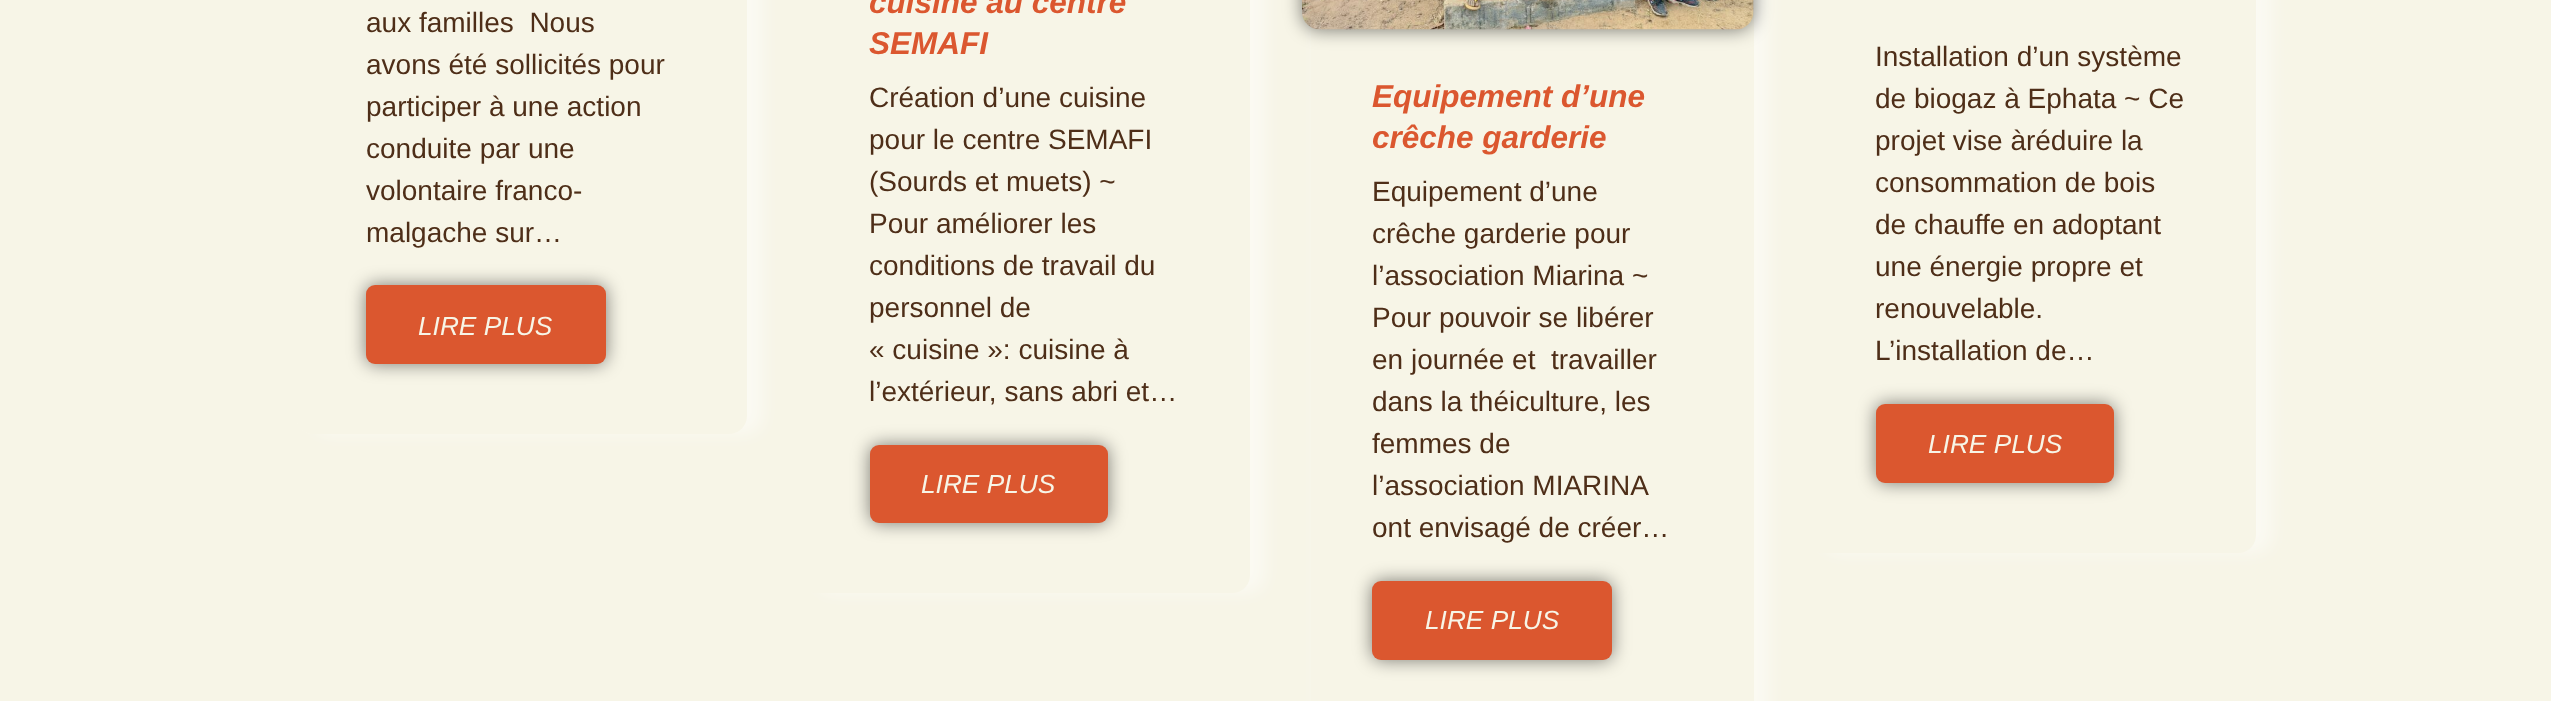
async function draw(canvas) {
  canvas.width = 2551;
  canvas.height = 701;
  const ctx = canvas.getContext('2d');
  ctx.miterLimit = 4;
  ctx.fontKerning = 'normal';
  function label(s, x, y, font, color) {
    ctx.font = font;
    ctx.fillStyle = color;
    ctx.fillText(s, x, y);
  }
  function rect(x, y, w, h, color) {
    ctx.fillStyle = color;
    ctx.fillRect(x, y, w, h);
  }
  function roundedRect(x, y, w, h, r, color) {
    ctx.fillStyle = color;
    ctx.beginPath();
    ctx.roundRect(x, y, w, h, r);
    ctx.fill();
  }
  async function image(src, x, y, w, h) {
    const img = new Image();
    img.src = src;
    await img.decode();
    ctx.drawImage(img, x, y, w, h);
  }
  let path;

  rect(0, 0, 2551, 701, '#f7f5e7');
  ctx.save();
  path = new Path2D('M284 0H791V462H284ZM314-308H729C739-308 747-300 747-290V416C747 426 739 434 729 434H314C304 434 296 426 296 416V-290C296-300 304-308 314-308Z');
  ctx.clip(path, 'evenodd');
  ctx.fillStyle = '#ffffff80';
  ctx.filter = 'blur(9px)';
  ctx.beginPath();
  ctx.roundRect(312, -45, 451, 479, 18);
  ctx.fill();
  ctx.filter = 'none';
  ctx.restore();
  label('aux familles  Nous', 366, 32, '28px Liberation Sans', '#4e2e18');
  label('avons été sollicités pour', 366, 74, '28px Liberation Sans', '#4e2e18');
  label('participer à une action', 366, 116, '28px Liberation Sans', '#4e2e18');
  label('conduite par une', 366, 158, '28px Liberation Sans', '#4e2e18');
  label('volontaire franco-', 366, 200, '28px Liberation Sans', '#4e2e18');
  label('malgache sur…', 366, 242, '28px Liberation Sans', '#4e2e18');
  ctx.fillStyle = '#00000080';
  ctx.filter = 'blur(9px)';
  ctx.beginPath();
  ctx.roundRect(366, 285, 240, 79, 9);
  ctx.fill();
  ctx.filter = 'none';
  roundedRect(366, 285, 240, 79, 9, '#db572f');
  label('LIRE PLUS', 418, 335, 'italic 26.25px Liberation Sans', '#f7f5e7');
  ctx.fillStyle = '#ffffff80';
  ctx.filter = 'blur(9px)';
  ctx.beginPath();
  ctx.roundRect(816, -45, 449, 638, 18);
  ctx.fill();
  ctx.filter = 'none';
  roundedRect(800, -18, 450, 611, 18, '#f7f5e7');
  label('cuisine au centre', 869, 13, 'italic bold 31.5px Liberation Sans', '#db572f');
  label('SEMAFI', 869, 54, 'italic bold 31.5px Liberation Sans', '#db572f');
  label('Création d’une cuisine', 869, 107, '28px Liberation Sans', '#4e2e18');
  label('pour le centre SEMAFI', 869, 149, '28px Liberation Sans', '#4e2e18');
  label('(Sourds et muets) ~', 869, 191, '28px Liberation Sans', '#4e2e18');
  label('Pour améliorer les', 869, 233, '28px Liberation Sans', '#4e2e18');
  label('conditions de travail du', 869, 275, '28px Liberation Sans', '#4e2e18');
  label('personnel de', 869, 317, '28px Liberation Sans', '#4e2e18');
  label('« cuisine »: cuisine à', 869, 359, '28px Liberation Sans', '#4e2e18');
  label('l’extérieur, sans abri et…', 869, 401, '28px Liberation Sans', '#4e2e18');
  ctx.fillStyle = '#00000080';
  ctx.filter = 'blur(9px)';
  ctx.beginPath();
  ctx.roundRect(870, 445, 238, 78, 9);
  ctx.fill();
  ctx.filter = 'none';
  roundedRect(870, 445, 238, 78, 9, '#db572f');
  label('LIRE PLUS', 921, 493, 'italic 26.25px Liberation Sans', '#f7f5e7');
  ctx.fillStyle = '#ffffff80';
  ctx.filter = 'blur(9px)';
  ctx.beginPath();
  ctx.roundRect(1318, -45, 451, 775, 18);
  ctx.fill();
  ctx.filter = 'none';
  rect(1311, 0, 443, 701, '#f7f5e7');
  ctx.fillStyle = '#00000080';
  ctx.filter = 'blur(9px)';
  ctx.beginPath();
  ctx.roundRect(1302, -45, 452, 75, 18);
  ctx.fill();
  ctx.filter = 'none';
  await image('assets/img1.png', 1302, 0, 452, 30);
  label('Equipement d’une', 1372, 107, 'italic bold 31.5px Liberation Sans', '#db572f');
  label('crêche garderie', 1372, 148, 'italic bold 31.5px Liberation Sans', '#db572f');
  label('Equipement d’une', 1372, 201, '28px Liberation Sans', '#4e2e18');
  label('crêche garderie pour', 1372, 243, '28px Liberation Sans', '#4e2e18');
  label('l’association Miarina ~', 1372, 285, '28px Liberation Sans', '#4e2e18');
  label('Pour pouvoir se libérer', 1372, 327, '28px Liberation Sans', '#4e2e18');
  label('en journée et  travailler', 1372, 369, '28px Liberation Sans', '#4e2e18');
  label('dans la théiculture, les', 1372, 411, '28px Liberation Sans', '#4e2e18');
  label('femmes de', 1372, 453, '28px Liberation Sans', '#4e2e18');
  label('l’association MIARINA', 1372, 495, '28px Liberation Sans', '#4e2e18');
  label('ont envisagé de créer…', 1372, 537, '28px Liberation Sans', '#4e2e18');
  ctx.fillStyle = '#00000080';
  ctx.filter = 'blur(9px)';
  ctx.beginPath();
  ctx.roundRect(1372, 581, 240, 79, 9);
  ctx.fill();
  ctx.filter = 'none';
  roundedRect(1372, 581, 240, 79, 9, '#db572f');
  label('LIRE PLUS', 1425, 629, 'italic 26.25px Liberation Sans', '#f7f5e7');
  ctx.fillStyle = '#ffffff80';
  ctx.filter = 'blur(9px)';
  ctx.beginPath();
  ctx.roundRect(1822, -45, 450, 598, 18);
  ctx.fill();
  ctx.filter = 'none';
  roundedRect(1806, -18, 450, 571, 18, '#f7f5e7');
  label('Installation d’un système', 1875, 66, '28px Liberation Sans', '#4e2e18');
  label('de biogaz à Ephata ~ Ce', 1875, 108, '28px Liberation Sans', '#4e2e18');
  label('projet vise àréduire la', 1875, 150, '28px Liberation Sans', '#4e2e18');
  label('consommation de bois', 1875, 192, '28px Liberation Sans', '#4e2e18');
  label('de chauffe en adoptant', 1875, 234, '28px Liberation Sans', '#4e2e18');
  label('une énergie propre et', 1875, 276, '28px Liberation Sans', '#4e2e18');
  label('renouvelable.', 1875, 318, '28px Liberation Sans', '#4e2e18');
  label('L’installation de…', 1875, 360, '28px Liberation Sans', '#4e2e18');
  ctx.fillStyle = '#00000080';
  ctx.filter = 'blur(9px)';
  ctx.beginPath();
  ctx.roundRect(1876, 404, 238, 79, 9);
  ctx.fill();
  ctx.filter = 'none';
  roundedRect(1876, 404, 238, 79, 9, '#db572f');
  label('LIRE PLUS', 1928, 453, 'italic 26.25px Liberation Sans', '#f7f5e7');
}

draw(document.querySelector('canvas'));
